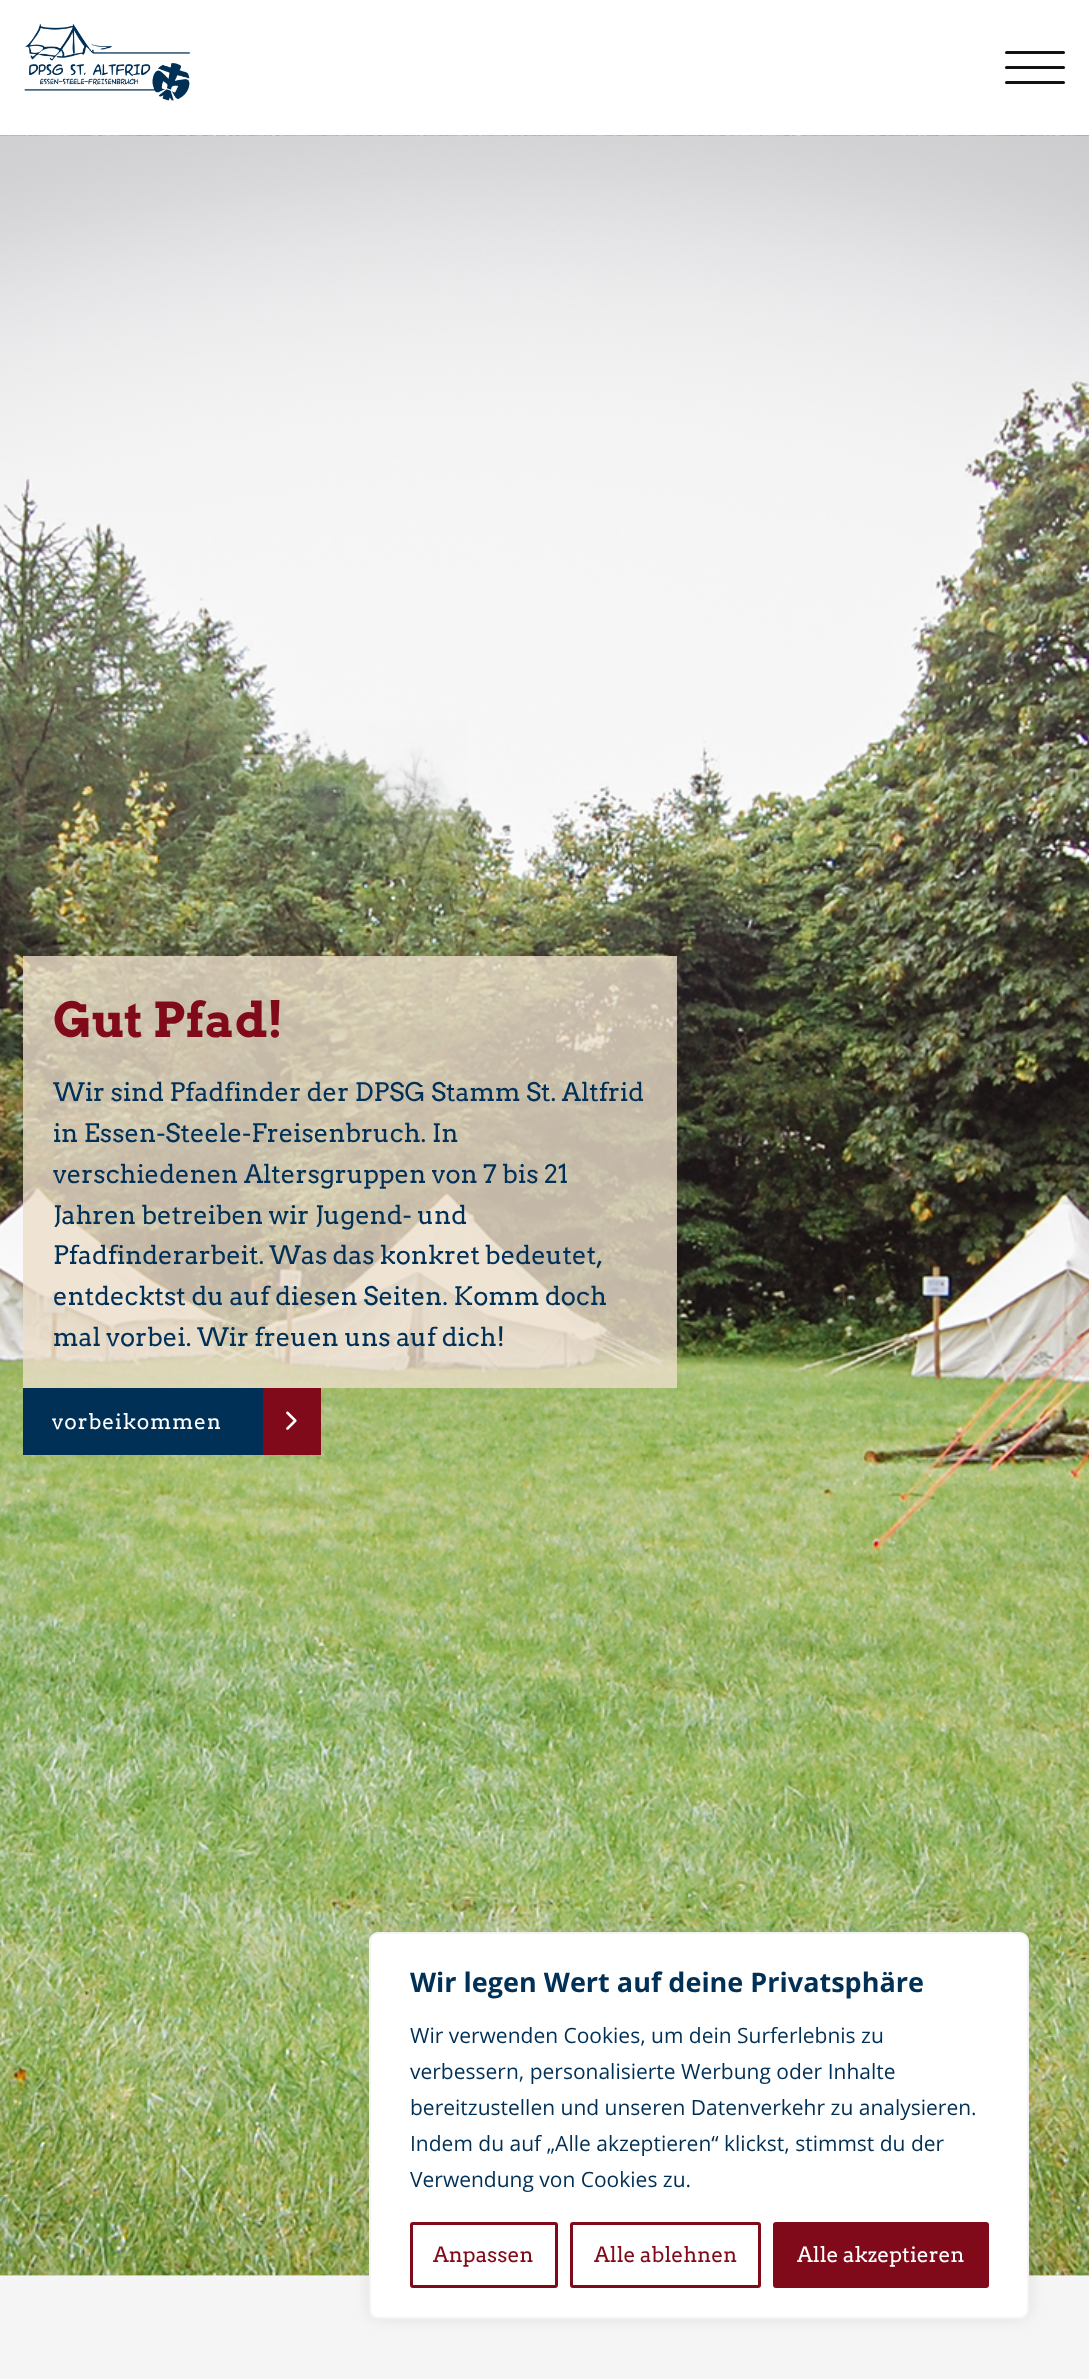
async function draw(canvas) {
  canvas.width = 1089;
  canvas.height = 2379;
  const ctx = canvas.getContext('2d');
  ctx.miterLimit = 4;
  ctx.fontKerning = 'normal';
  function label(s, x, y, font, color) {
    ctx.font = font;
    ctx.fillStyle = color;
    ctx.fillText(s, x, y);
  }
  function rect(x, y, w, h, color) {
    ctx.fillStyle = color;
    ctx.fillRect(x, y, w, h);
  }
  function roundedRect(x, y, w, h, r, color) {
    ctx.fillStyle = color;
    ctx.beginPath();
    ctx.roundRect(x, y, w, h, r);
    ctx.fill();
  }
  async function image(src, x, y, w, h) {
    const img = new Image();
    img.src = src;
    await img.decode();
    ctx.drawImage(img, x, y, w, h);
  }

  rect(0, 0, 1089, 2379, '#f5f5f5');
  rect(0, 0, 1089, 135, '#fff');
  await image('assets/img1.png', 24, 24, 166, 77);
  roundedRect(1005, 51, 60, 3, 1.5, '#121213');
  roundedRect(1005, 66, 60, 3, 1.5, '#121213');
  roundedRect(1005, 81, 60, 3, 1.5, '#121213');
  await image('assets/img2.png', 0, 135, 1089, 2141);
  rect(23, 956, 654, 432, '#ecdfcbcc');
  label('Gut Pfad!', 53, 1037, 'bold 48px Arvo', '#810a1a');
  label('Wir sind Pfadfinder der DPSG Stamm St. Altfrid', 53, 1101, '25.5px Arvo', '#003056');
  label('in Essen-Steele-Freisenbruch. In', 53, 1142, '25.5px Arvo', '#003056');
  label('verschiedenen Altersgruppen von 7 bis 21', 53, 1183, '25.5px Arvo', '#003056');
  label('Jahren betreiben wir Jugend- und', 53, 1224, '25.5px Arvo', '#003056');
  ctx.wordSpacing = '-0.5px';
  label('Pfadfinderarbeit. Was das konkret bedeutet,', 53, 1264, '25.5px Arvo', '#003056');
  ctx.wordSpacing = '0px';
  label('entdecktst du auf diesen Seiten. Komm doch', 53, 1305, '25.5px Arvo', '#003056');
  label('mal vorbei. Wir freuen uns auf dich!', 53, 1346, '25.5px Arvo', '#003056');
  rect(23, 1388, 240, 67, '#003056');
  rect(263, 1388, 58, 67, '#810a1a');
  ctx.letterSpacing = '0.9px';
  label('vorbeikommen', 52, 1429, '21px Arvo', '#fff');
  await image('assets/img3.png', 286, 1411, 11, 19);
  ctx.fillStyle = '#acabab4d';
  ctx.filter = 'blur(7.5px)';
  ctx.beginPath();
  ctx.roundRect(369, 1931, 660, 387, 9);
  ctx.fill();
  ctx.filter = 'none';
  ctx.fillStyle = '#fff';
  ctx.beginPath();
  ctx.roundRect(370, 1933, 658, 385, 8);
  ctx.fill();
  ctx.strokeStyle = '#f4f4f4';
  ctx.lineWidth = 2;
  ctx.stroke();
  ctx.letterSpacing = '0px';
  label('Wir legen Wert auf deine Privatsphäre', 410, 1992, 'bold 27px Open Sans', '#003056');
  label('Wir verwenden Cookies, um dein Surferlebnis zu', 410, 2043, '21px Open Sans', '#003056');
  label('verbessern, personalisierte Werbung oder Inhalte', 410, 2079, '21px Open Sans', '#003056');
  label('bereitzustellen und unseren Datenverkehr zu analysieren.', 410, 2115, '21px Open Sans', '#003056');
  label('Indem du auf „Alle akzeptieren“ klickst, stimmst du der', 410, 2151, '21px Open Sans', '#003056');
  label('Verwendung von Cookies zu.', 410, 2187, '21px Open Sans', '#003056');
  ctx.beginPath();
  ctx.roundRect(411.5, 2223.5, 145, 63, 1.5);
  ctx.strokeStyle = '#810a1a';
  ctx.lineWidth = 3;
  ctx.stroke();
  label('Anpassen', 433, 2262, '21px Arvo', '#810a1a');
  ctx.beginPath();
  ctx.roundRect(571.5, 2223.5, 188, 63, 1.5);
  ctx.stroke();
  label('Alle ablehnen', 594, 2262, '21px Arvo', '#810a1a');
  ctx.beginPath();
  ctx.roundRect(774.5, 2223.5, 213, 63, 1.5);
  ctx.fill();
  ctx.stroke();
  label('Alle akzeptieren', 797, 2262, '21px Arvo', '#fff');
}

draw(document.querySelector('canvas'));
